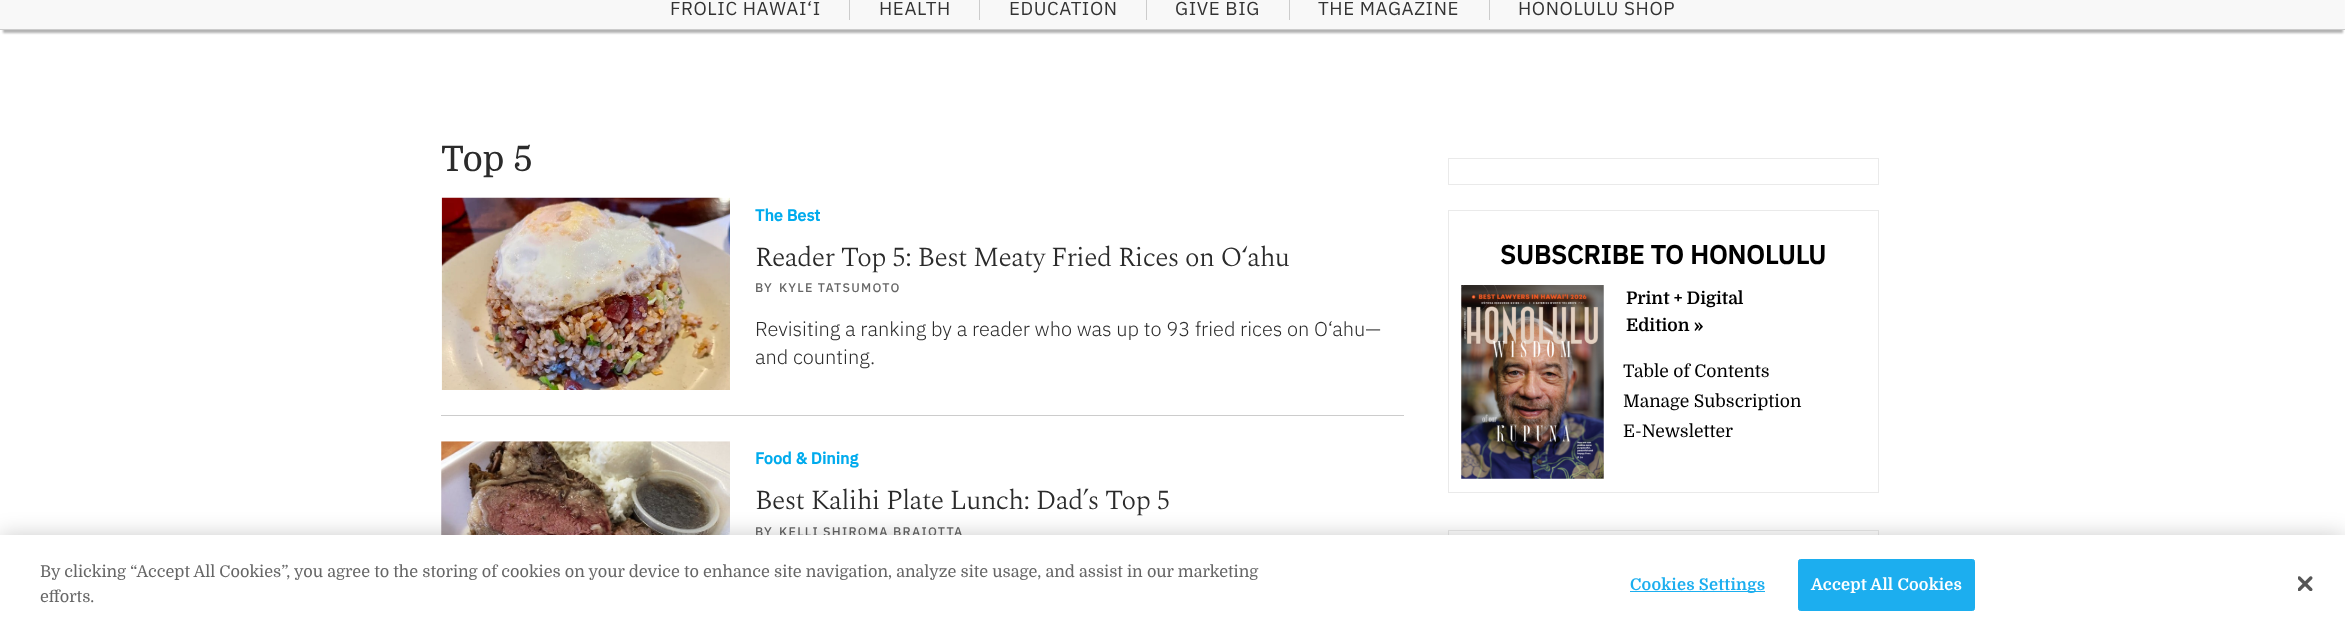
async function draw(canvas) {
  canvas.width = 2345;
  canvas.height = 637;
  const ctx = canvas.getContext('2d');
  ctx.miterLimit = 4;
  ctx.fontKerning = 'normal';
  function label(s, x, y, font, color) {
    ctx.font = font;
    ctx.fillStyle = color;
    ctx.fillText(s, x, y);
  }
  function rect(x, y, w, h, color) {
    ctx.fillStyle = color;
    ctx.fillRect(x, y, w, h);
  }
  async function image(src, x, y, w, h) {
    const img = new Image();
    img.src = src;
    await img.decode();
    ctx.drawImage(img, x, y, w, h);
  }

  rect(0, 0, 2345, 637, '#fff');
  ctx.fillStyle = '#0000004d';
  ctx.filter = 'blur(1px)';
  ctx.beginPath();
  ctx.rect(3, -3, 2340, 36);
  ctx.fill();
  ctx.filter = 'none';
  rect(0, 0, 2344, 29, '#f8f8f8');
  rect(0, 29, 2345, 1, '#ccc');
  rect(849, 0, 1, 20, '#ccc');
  ctx.letterSpacing = '0.6px';
  label('FROLIC HAWAI‘I', 670, 15, '18.75px IBM Plex Sans', '#333');
  rect(979, 0, 1, 20, '#ccc');
  label('HEALTH', 879, 15, '18.75px IBM Plex Sans', '#333');
  rect(1146, 0, 1, 20, '#ccc');
  label('EDUCATION', 1009, 15, '18.75px IBM Plex Sans', '#333');
  rect(1289, 0, 1, 20, '#ccc');
  label('GIVE BIG', 1175, 15, '18.75px IBM Plex Sans', '#333');
  rect(1489, 0, 1, 20, '#ccc');
  label('THE MAGAZINE', 1318, 15, '18.75px IBM Plex Sans', '#333');
  label('HONOLULU SHOP', 1518, 15, '18.75px IBM Plex Sans', '#333');
  ctx.letterSpacing = '0px';
  label('Top 5', 441, 171, '35px Domine', '#2b2b2b');
  rect(441, 415, 963, 1, '#ccc');
  await image('assets/img1.png', 441, 197, 289, 193);
  label('The Best', 755, 221, 'bold 16.25px IBM Plex Sans', '#00abed');
  ctx.letterSpacing = '-0.6px';
  label('Reader Top 5: Best Meaty Fried Rices on O‘ahu', 755, 266, '300 27.5px Spectral', '#2b2b2b');
  ctx.letterSpacing = '1.25px';
  label('BY', 755, 292, '500 12.5px IBM Plex Sans', '#666');
  label('KYLE TATSUMOTO', 779, 292, '500 12.5px IBM Plex Sans', '#666');
  ctx.letterSpacing = '0px';
  label('Revisiting a ranking by a reader who was up to 93 fried rices on O‘ahu—', 755, 336, '300 20px IBM Plex Sans', '#2b2b2b');
  label('and counting.', 755, 364, '300 20px IBM Plex Sans', '#2b2b2b');
  await image('assets/img2.png', 441, 441, 289, 94);
  label('Food & Dining', 755, 464, 'bold 16.25px IBM Plex Sans', '#00abed');
  ctx.letterSpacing = '-0.6px';
  label('Best Kalihi Plate Lunch: Dad’s Top 5', 755, 509, '300 27.5px Spectral', '#2b2b2b');
  ctx.letterSpacing = '1.25px';
  label('BY', 755, 536, '500 12.5px IBM Plex Sans', '#666');
  label('KELLI SHIROMA BRAIOTTA', 779, 536, '500 12.5px IBM Plex Sans', '#666');
  ctx.strokeStyle = '#eaeaea';
  ctx.strokeRect(1448.5, 158.5, 430, 26);
  ctx.strokeRect(1448.5, 210.5, 430, 282);
  ctx.letterSpacing = '0px';
  label('SUBSCRIBE TO HONOLULU', 1500, 264, 'bold 26.25px IBM Plex Sans', '#000');
  await image('assets/img3.png', 1461, 285, 143, 194);
  label('Print + Digital', 1626, 304, 'bold 17.5px Domine', '#000');
  label('Edition »', 1626, 331, 'bold 17.5px Domine', '#000');
  label('Table of Contents', 1623, 377, '17.5px Domine', '#000');
  label('Manage Subscription', 1623, 407, '17.5px Domine', '#000');
  label('E-Newsletter', 1623, 437, '17.5px Domine', '#000');
  ctx.strokeRect(1448.5, 530.5, 430, 27);
  ctx.fillStyle = '#00000033';
  ctx.filter = 'blur(11px)';
  ctx.beginPath();
  ctx.rect(0, 535, 2345, 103);
  ctx.fill();
  ctx.filter = 'none';
  rect(0, 535, 2345, 102, '#fff');
  label('By clicking “Accept All Cookies”, you agree to the storing of cookies on your device to enhance site navigation, analyze site usage, and assist in our marketing', 40, 577, '16.25px Domine', '#666');
  label('efforts.', 40, 602, '16.25px Domine', '#666');
  rect(1630, 591, 135, 1, '#1caeef');
  ctx.letterSpacing = '0.2px';
  label('Cookies Settings', 1630, 590, 'bold 16.25px Domine', '#1caeef');
  ctx.beginPath();
  ctx.roundRect(1798.5, 559.5, 176, 51, 2);
  ctx.fill();
  ctx.strokeStyle = '#1caeef';
  ctx.stroke();
  label('Accept All Cookies', 1811, 590, 'bold 16.25px Domine', '#fff');
  await image('assets/img4.png', 2298, 576, 15, 15);
}

draw(document.querySelector('canvas'));
